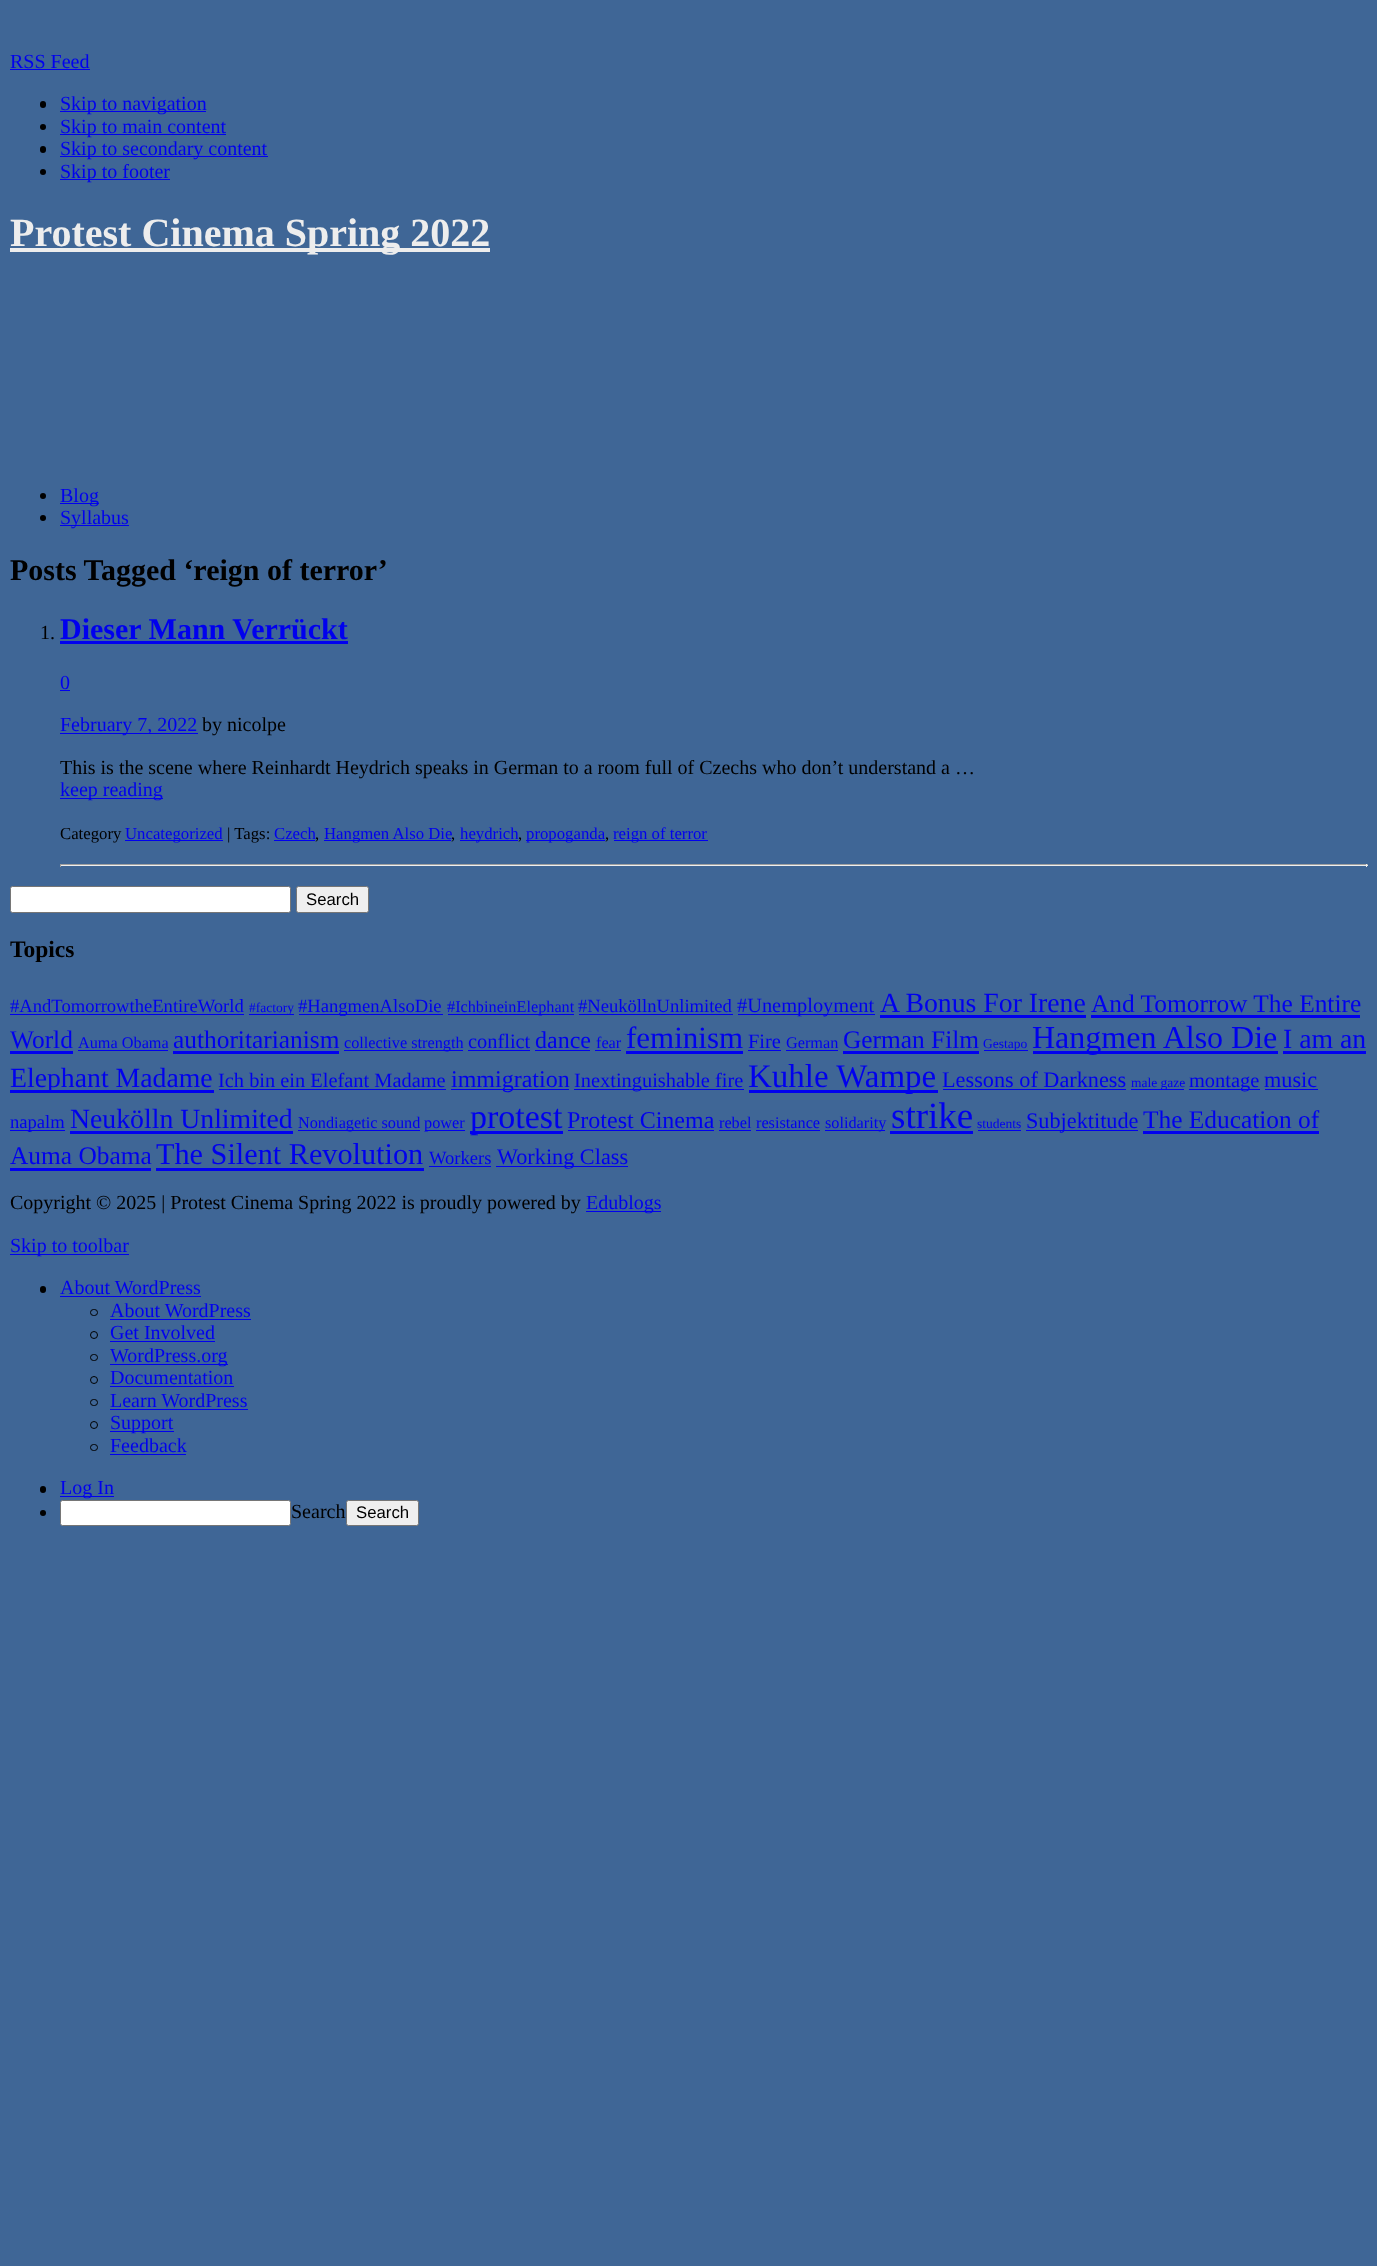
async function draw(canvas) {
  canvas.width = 1377;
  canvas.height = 2266;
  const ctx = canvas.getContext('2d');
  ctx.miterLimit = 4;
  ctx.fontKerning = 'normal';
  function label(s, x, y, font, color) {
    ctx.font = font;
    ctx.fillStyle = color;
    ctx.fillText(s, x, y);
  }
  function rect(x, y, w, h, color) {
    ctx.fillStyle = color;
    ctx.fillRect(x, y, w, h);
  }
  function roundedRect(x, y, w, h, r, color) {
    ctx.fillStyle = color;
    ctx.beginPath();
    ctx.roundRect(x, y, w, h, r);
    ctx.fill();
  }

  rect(0, 0, 1377, 2266, '#3f6696');
  label('RSS Feed', 10, 68, '20px Liberation Serif', '#00e');
  rect(10, 69, 80, 1, '#00e');
  roundedRect(40, 101, 6, 7, 3, '#000');
  rect(60, 111, 146, 1, '#00e');
  label('Skip to navigation', 60, 110, '20px Liberation Serif', '#00e');
  ctx.fillStyle = '#000';
  ctx.beginPath();
  ctx.arc(43, 127, 3, 0, 2 * Math.PI);
  ctx.fill();
  rect(60, 134, 166, 1, '#00e');
  label('Skip to main content', 60, 133, '20px Liberation Serif', '#00e');
  roundedRect(40, 146, 6, 7, 3, '#000');
  rect(60, 156, 208, 1, '#00e');
  label('Skip to secondary content', 60, 155, '20px Liberation Serif', '#00e');
  ctx.fillStyle = '#000';
  ctx.beginPath();
  ctx.arc(43, 172, 3, 0, 2 * Math.PI);
  ctx.fill();
  rect(60, 179, 110, 1, '#00e');
  label('Skip to footer', 60, 178, '20px Liberation Serif', '#00e');
  rect(10, 248, 480, 4, '#ededed');
  label('Protest Cinema Spring 2022', 10, 246, 'bold 40px Liberation Serif', '#ededed');
  ctx.fillStyle = '#000';
  ctx.beginPath();
  ctx.arc(43, 496, 3, 0, 2 * Math.PI);
  ctx.fill();
  rect(60, 503, 39, 1, '#00e');
  label('Blog', 60, 502, '20px Liberation Serif', '#00e');
  ctx.fillStyle = '#000';
  ctx.beginPath();
  ctx.arc(43, 518, 3, 0, 2 * Math.PI);
  ctx.fill();
  rect(60, 525, 69, 1, '#00e');
  label('Syllabus', 60, 524, '20px Liberation Serif', '#00e');
  label('Posts Tagged ‘reign of terror’', 10, 580, 'bold 30px Liberation Serif', '#000');
  label('1.', 40, 639, '20px Liberation Serif', '#000');
  label('Dieser Mann Verrückt', 60, 639, 'bold 30px Liberation Serif', '#00e');
  rect(60, 641, 288, 3, '#00e');
  label('0', 60, 689, '20px Liberation Serif', '#00e');
  rect(60, 690, 10, 1, '#00e');
  rect(60, 733, 138, 1, '#00e');
  label('February 7, 2022', 60, 731, '20px Liberation Serif', '#00e');
  label('by nicolpe', 202, 731, '20px Liberation Serif', '#000');
  label('This is the scene where Reinhardt Heydrich speaks in German to a room full of Czechs who don’t understand a …', 60, 774, '20px Liberation Serif', '#000');
  rect(60, 798, 103, 1, '#00e');
  label('keep reading', 60, 796, '20px Liberation Serif', '#00e');
  label('Category', 60, 839, '16.75px Liberation Serif', '#000');
  rect(125, 840, 98, 1, '#00e');
  label('Uncategorized', 125, 839, '16.75px Liberation Serif', '#00e');
  label('| Tags:', 227, 839, '16.75px Liberation Serif', '#000');
  label('Czech', 274, 839, '16.75px Liberation Serif', '#00e');
  label(',', 315, 839, '16.75px Liberation Serif', '#000');
  rect(274, 840, 41, 1, '#00e');
  rect(324, 840, 127, 1, '#00e');
  label('Hangmen Also Die', 324, 839, '16.75px Liberation Serif', '#00e');
  label(',', 451, 839, '16.75px Liberation Serif', '#000');
  rect(460, 840, 58, 1, '#00e');
  label('heydrich', 460, 839, '16.75px Liberation Serif', '#00e');
  label(',', 518, 839, '16.75px Liberation Serif', '#000');
  rect(526, 840, 79, 1, '#00e');
  label('propoganda', 526, 839, '16.75px Liberation Serif', '#00e');
  label(',', 605, 839, '16.75px Liberation Serif', '#000');
  rect(614, 840, 94, 1, '#00e');
  label('reign of terror', 613, 839, '16.75px Liberation Serif', '#00e');
  rect(60, 864, 1308, 1, '#9f9f9f');
  rect(1366, 864, 1, 3, '#eee');
  rect(60, 865, 1308, 1, '#eee');
  rect(60, 864, 1, 3, '#9f9f9f');
  ctx.fillStyle = '#fff';
  ctx.beginPath();
  ctx.roundRect(10.5, 886.5, 280, 26, 2);
  ctx.fill();
  ctx.strokeStyle = '#767676';
  ctx.stroke();
  ctx.fillStyle = '#efefef';
  ctx.beginPath();
  ctx.roundRect(296.5, 886.5, 72, 26, 2);
  ctx.fill();
  ctx.stroke();
  label('Search', 306, 905, '16.75px Liberation Sans', '#000');
  label('Topics', 10, 957, 'bold 23.5px Liberation Serif', '#000');
  label('#AndTomorrowtheEntireWorld', 10, 1012, '18.6px Liberation Serif', '#00e');
  rect(10, 1014, 234, 1, '#00e');
  rect(249, 1014, 45, 1, '#00e');
  label('#factory', 249, 1012, '13.5px Liberation Serif', '#00e');
  rect(299, 1014, 144, 1, '#00e');
  label('#HangmenAlsoDie', 298, 1012, '18.6px Liberation Serif', '#00e');
  rect(448, 1014, 126, 1, '#00e');
  label('#IchbineinElephant', 447, 1012, '16.25px Liberation Serif', '#00e');
  label('#NeuköllnUnlimited', 578, 1012, '18.6px Liberation Serif', '#00e');
  rect(579, 1014, 154, 1, '#00e');
  rect(738, 1014, 137, 1, '#00e');
  label('#Unemployment', 737, 1012, '20.4px Liberation Serif', '#00e');
  label('A Bonus For Irene', 880, 1012, '27.75px Liberation Serif', '#00e');
  rect(880, 1015, 206, 3, '#00e');
  label('And Tomorrow The Entire', 1091, 1012, '25.4px Liberation Serif', '#00e');
  rect(1091, 1015, 269, 3, '#00e');
  label('World', 10, 1048, '25.4px Liberation Serif', '#00e');
  rect(10, 1051, 63, 3, '#00e');
  label('Auma Obama', 78, 1048, '16.25px Liberation Serif', '#00e');
  rect(78, 1050, 90, 1, '#00e');
  label('authoritarianism', 173, 1048, '25.4px Liberation Serif', '#00e');
  rect(173, 1051, 166, 3, '#00e');
  rect(344, 1050, 119, 1, '#00e');
  label('collective strength', 344, 1048, '16.25px Liberation Serif', '#00e');
  label('conflict', 468, 1048, '20.4px Liberation Serif', '#00e');
  rect(468, 1050, 62, 1, '#00e');
  label('dance', 535, 1048, '24px Liberation Serif', '#00e');
  rect(535, 1050, 55, 1, '#00e');
  label('fear', 596, 1048, '16.25px Liberation Serif', '#00e');
  rect(595, 1050, 26, 1, '#00e');
  label('feminism', 626, 1048, '31px Liberation Serif', '#00e');
  rect(626, 1051, 117, 3, '#00e');
  label('Fire', 748, 1048, '20.4px Liberation Serif', '#00e');
  rect(748, 1050, 33, 1, '#00e');
  label('German', 786, 1048, '16.25px Liberation Serif', '#00e');
  rect(786, 1050, 52, 1, '#00e');
  label('German Film', 843, 1048, '25.4px Liberation Serif', '#00e');
  rect(843, 1051, 136, 3, '#00e');
  rect(984, 1050, 44, 1, '#00e');
  label('Gestapo', 983, 1048, '13.5px Liberation Serif', '#00e');
  rect(1033, 1051, 245, 3, '#00e');
  label('Hangmen Also Die', 1032, 1048, '32px Liberation Serif', '#00e');
  label('I am an', 1283, 1048, '27.75px Liberation Serif', '#00e');
  rect(1283, 1051, 83, 3, '#00e');
  rect(10, 1090, 204, 3, '#00e');
  label('Elephant Madame', 10, 1087, '27.75px Liberation Serif', '#00e');
  label('Ich bin ein Elefant Madame', 218, 1087, '20.4px Liberation Serif', '#00e');
  rect(219, 1089, 227, 1, '#00e');
  rect(451, 1089, 118, 1, '#00e');
  label('immigration', 451, 1087, '24px Liberation Serif', '#00e');
  rect(574, 1089, 170, 1, '#00e');
  label('Inextinguishable fire', 574, 1087, '20.4px Liberation Serif', '#00e');
  rect(749, 1090, 189, 3, '#00e');
  label('Kuhle Wampe', 748, 1087, '33px Liberation Serif', '#00e');
  label('Lessons of Darkness', 942, 1087, '22.25px Liberation Serif', '#00e');
  rect(943, 1089, 183, 1, '#00e');
  rect(1131, 1089, 53, 1, '#00e');
  label('male gaze', 1131, 1087, '13.5px Liberation Serif', '#00e');
  rect(1189, 1089, 71, 1, '#00e');
  label('montage', 1189, 1087, '20.4px Liberation Serif', '#00e');
  label('music', 1264, 1087, '22.25px Liberation Serif', '#00e');
  rect(1265, 1089, 53, 1, '#00e');
  rect(10, 1130, 55, 1, '#00e');
  label('napalm', 10, 1128, '18.6px Liberation Serif', '#00e');
  label('Neukölln Unlimited', 70, 1128, '27.75px Liberation Serif', '#00e');
  rect(70, 1131, 223, 3, '#00e');
  rect(298, 1130, 122, 1, '#00e');
  label('Nondiagetic sound', 298, 1128, '16.25px Liberation Serif', '#00e');
  rect(425, 1130, 40, 1, '#00e');
  label('power', 424, 1128, '16.25px Liberation Serif', '#00e');
  rect(470, 1131, 93, 3, '#00e');
  label('protest', 470, 1128, '34px Liberation Serif', '#00e');
  label('Protest Cinema', 567, 1128, '24px Liberation Serif', '#00e');
  rect(568, 1130, 146, 1, '#00e');
  label('rebel', 719, 1128, '16.25px Liberation Serif', '#00e');
  rect(719, 1130, 32, 1, '#00e');
  label('resistance', 756, 1128, '16.25px Liberation Serif', '#00e');
  rect(756, 1130, 64, 1, '#00e');
  rect(825, 1130, 60, 1, '#00e');
  label('solidarity', 825, 1128, '16.25px Liberation Serif', '#00e');
  label('strike', 891, 1128, '37px Liberation Serif', '#00e');
  rect(890, 1131, 83, 3, '#00e');
  label('students', 977, 1128, '13.5px Liberation Serif', '#00e');
  rect(978, 1130, 43, 1, '#00e');
  rect(1026, 1130, 112, 1, '#00e');
  label('Subjektitude', 1026, 1128, '22.25px Liberation Serif', '#00e');
  label('The Education of', 1143, 1128, '25.4px Liberation Serif', '#00e');
  rect(1143, 1131, 176, 3, '#00e');
  label('Auma Obama', 10, 1164, '25.4px Liberation Serif', '#00e');
  rect(10, 1168, 141, 3, '#00e');
  label('The Silent Revolution', 156, 1164, '30.25px Liberation Serif', '#00e');
  rect(156, 1168, 268, 3, '#00e');
  label('Workers', 429, 1164, '18.6px Liberation Serif', '#00e');
  rect(429, 1166, 62, 1, '#00e');
  rect(496, 1166, 132, 1, '#00e');
  label('Working Class', 497, 1164, '22.25px Liberation Serif', '#00e');
  label('Copyright © 2025 | Protest Cinema Spring 2022 is proudly powered by', 10, 1209, '20px Liberation Serif', '#000');
  rect(586, 1211, 75, 1, '#00e');
  label('Edublogs', 586, 1209, '20px Liberation Serif', '#00e');
  rect(10, 1254, 119, 1, '#00e');
  label('Skip to toolbar', 10, 1252, '20px Liberation Serif', '#00e');
  roundedRect(40, 1286, 6, 7, 3, '#000');
  label('About WordPress', 60, 1294, '20px Liberation Serif', '#00e');
  rect(60, 1296, 141, 1, '#00e');
  ctx.beginPath();
  ctx.roundRect(90.5, 1309.5, 7, 6, 3);
  ctx.strokeStyle = '#000';
  ctx.stroke();
  label('About WordPress', 110, 1317, '20px Liberation Serif', '#00e');
  rect(110, 1319, 141, 1, '#00e');
  ctx.beginPath();
  ctx.arc(94, 1335, 3.5, 0, 2 * Math.PI);
  ctx.stroke();
  label('Get Involved', 110, 1339, '20px Liberation Serif', '#00e');
  rect(110, 1341, 105, 1, '#00e');
  ctx.beginPath();
  ctx.roundRect(90.5, 1354.5, 7, 6, 3);
  ctx.stroke();
  rect(110, 1364, 118, 1, '#00e');
  label('WordPress.org', 110, 1362, '20px Liberation Serif', '#00e');
  ctx.beginPath();
  ctx.arc(94, 1380, 3.5, 0, 2 * Math.PI);
  ctx.stroke();
  label('Documentation', 110, 1384, '20px Liberation Serif', '#00e');
  rect(110, 1386, 124, 1, '#00e');
  ctx.beginPath();
  ctx.roundRect(90.5, 1399.5, 7, 6, 3);
  ctx.stroke();
  label('Learn WordPress', 110, 1407, '20px Liberation Serif', '#00e');
  rect(110, 1409, 138, 1, '#00e');
  ctx.beginPath();
  ctx.arc(94, 1425, 3.5, 0, 2 * Math.PI);
  ctx.stroke();
  rect(110, 1431, 64, 1, '#00e');
  label('Support', 110, 1429, '20px Liberation Serif', '#00e');
  ctx.beginPath();
  ctx.roundRect(90.5, 1444.5, 7, 6, 3);
  ctx.stroke();
  label('Feedback', 110, 1452, '20px Liberation Serif', '#00e');
  rect(110, 1454, 76, 1, '#00e');
  roundedRect(40, 1486, 6, 7, 3, '#000');
  rect(60, 1496, 54, 1, '#00e');
  label('Log In', 60, 1494, '20px Liberation Serif', '#00e');
  ctx.fillStyle = '#000';
  ctx.beginPath();
  ctx.arc(43, 1513, 3, 0, 2 * Math.PI);
  ctx.fill();
  ctx.fillStyle = '#fff';
  ctx.beginPath();
  ctx.roundRect(60.5, 1500.5, 230, 25, 2);
  ctx.fill();
  ctx.strokeStyle = '#767676';
  ctx.stroke();
  label('Search', 291, 1518, '20px Liberation Serif', '#000');
  ctx.fillStyle = '#efefef';
  ctx.beginPath();
  ctx.roundRect(346.5, 1500.5, 72, 25, 2);
  ctx.fill();
  ctx.stroke();
  label('Search', 356, 1518, '16.75px Liberation Sans', '#000');
}

draw(document.querySelector('canvas'));
